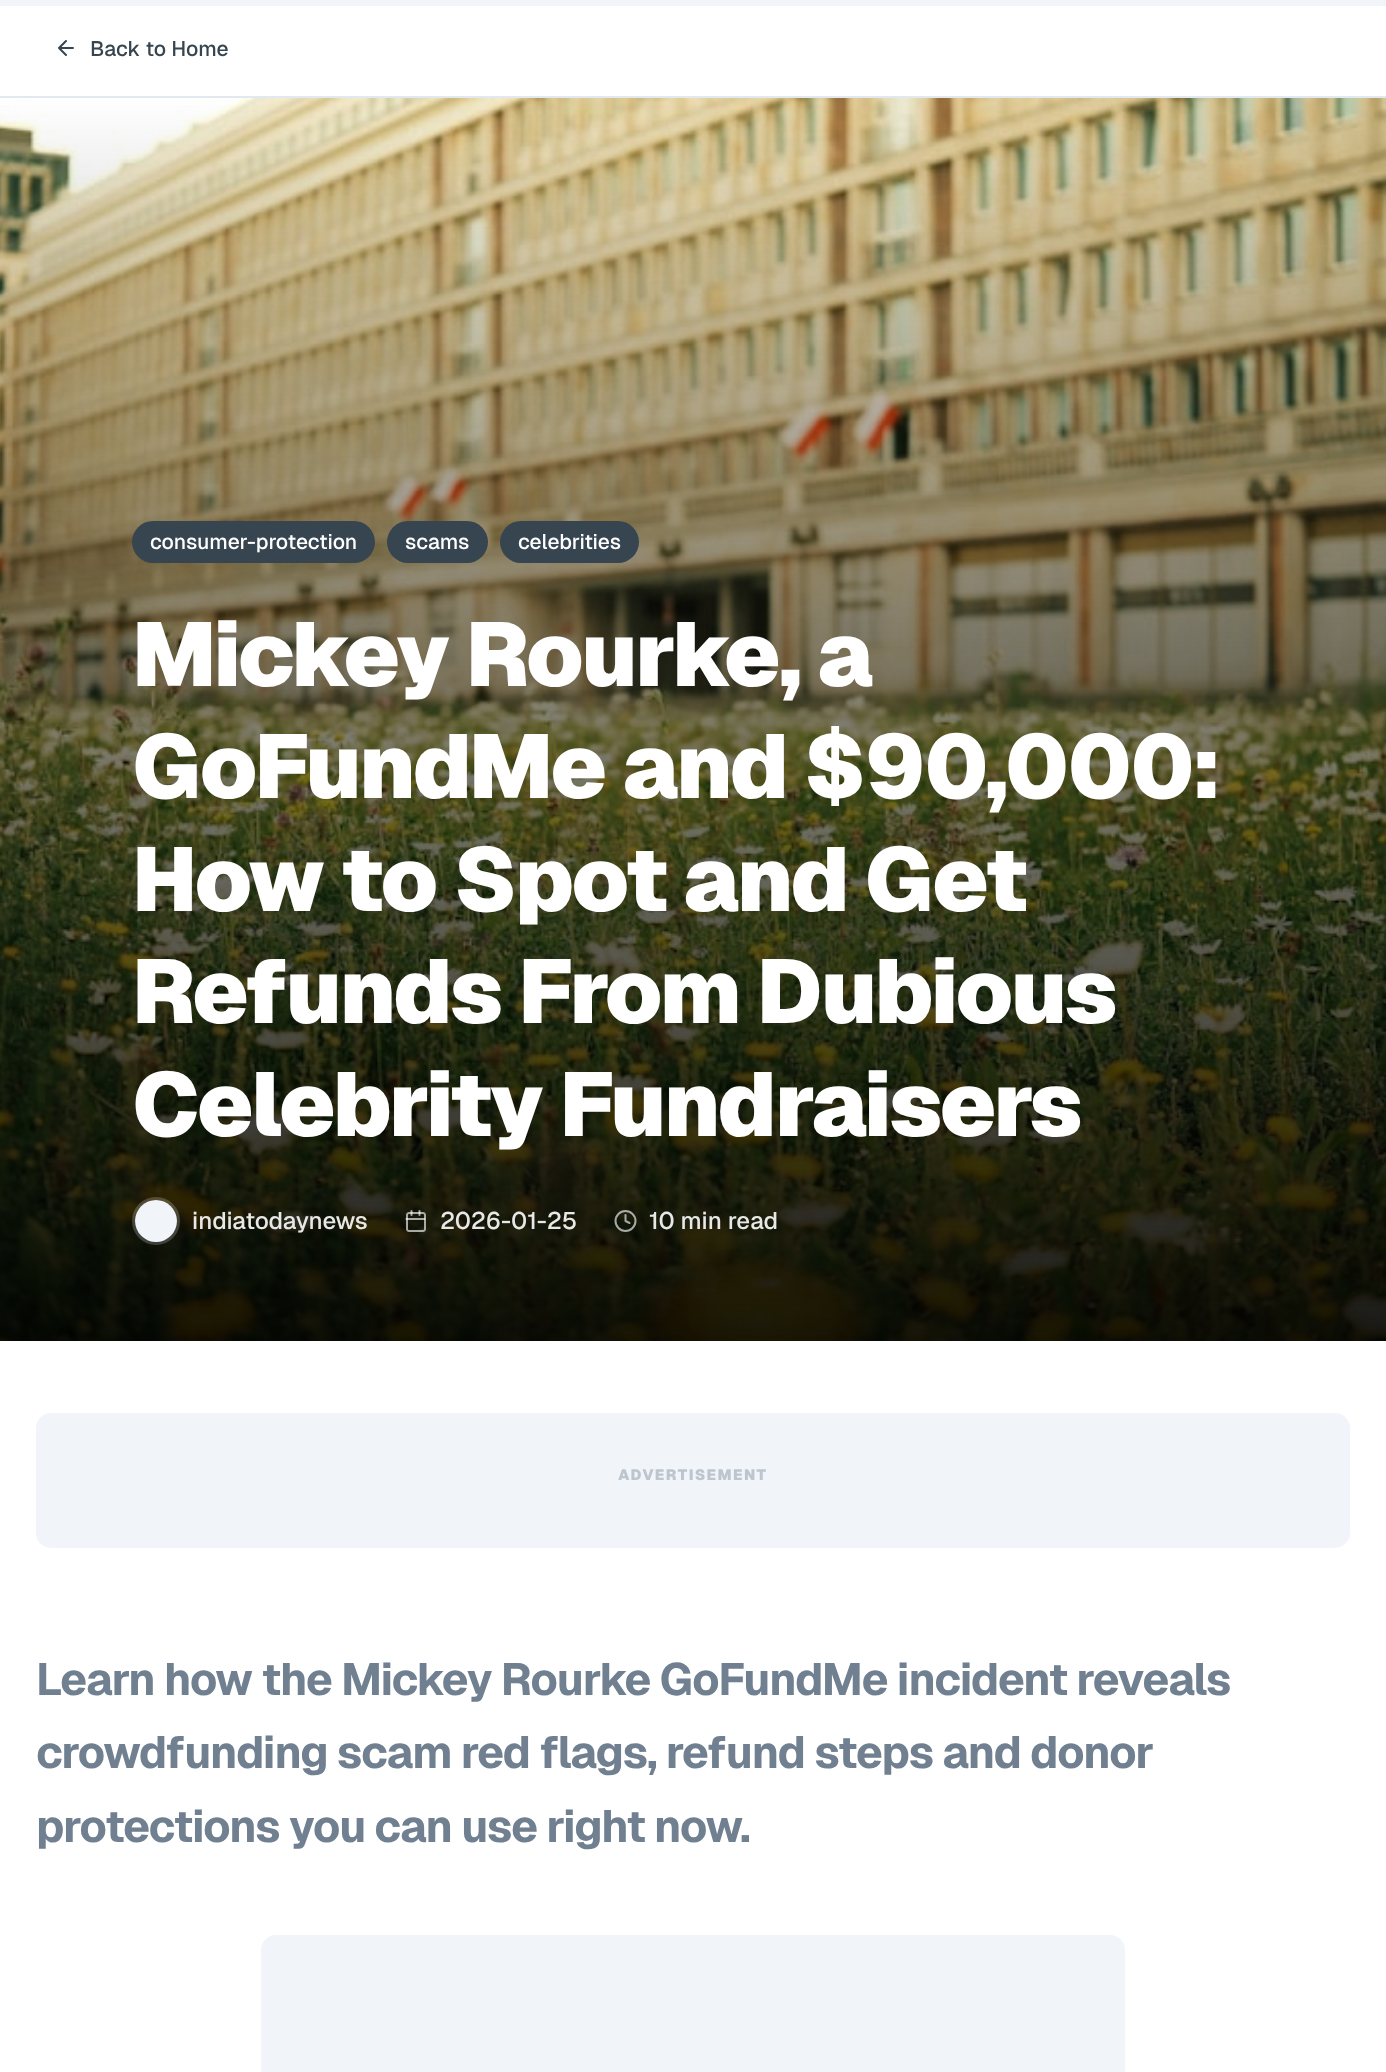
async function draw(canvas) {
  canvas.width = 1386;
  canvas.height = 2072;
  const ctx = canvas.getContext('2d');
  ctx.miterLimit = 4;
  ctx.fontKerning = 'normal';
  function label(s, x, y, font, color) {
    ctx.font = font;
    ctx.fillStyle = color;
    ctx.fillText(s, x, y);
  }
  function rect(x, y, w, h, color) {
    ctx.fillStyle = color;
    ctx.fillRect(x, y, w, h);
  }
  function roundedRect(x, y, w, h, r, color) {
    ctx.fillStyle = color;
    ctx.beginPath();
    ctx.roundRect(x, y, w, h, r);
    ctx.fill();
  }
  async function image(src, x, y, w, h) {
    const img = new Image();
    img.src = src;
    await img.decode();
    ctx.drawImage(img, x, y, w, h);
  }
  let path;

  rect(0, 0, 1386, 2072, '#fff');
  rect(0, 0, 1386, 6, '#f1f5f9');
  rect(0, 96, 1386, 2, '#e2e8f0');
  path = new Path2D('M66 55L59 48L66 41M73 48H59');
  ctx.strokeStyle = '#36454f';
  ctx.lineWidth = 2;
  ctx.lineCap = 'round';
  ctx.lineJoin = 'round';
  ctx.stroke(path);
  label('Back to Home', 90, 56, '500 21px Geist', '#36454f');
  await image('assets/img1.png', 0, 98, 1386, 1243);
  roundedRect(132, 521, 243, 42, 21, '#36454f');
  label('consumer-protection', 150, 549, '500 21px Geist', '#fff');
  roundedRect(387, 521, 101, 42, 21, '#36454f');
  label('scams', 405, 549, '500 21px Geist', '#fff');
  roundedRect(500, 521, 139, 42, 21, '#36454f');
  label('celebrities', 518, 549, '500 21px Geist', '#fff');
  ctx.letterSpacing = '-2.25px';
  label('Mickey Rourke, a', 132, 686, '900 90px Geist', '#fff');
  label('GoFundMe and $90,000:', 132, 798, '900 90px Geist', '#fff');
  label('How to Spot and Get', 132, 911, '900 90px Geist', '#fff');
  label('Refunds From Dubious', 132, 1023, '900 90px Geist', '#fff');
  label('Celebrity Fundraisers', 132, 1136, '900 90px Geist', '#fff');
  ctx.beginPath();
  ctx.arc(156, 1221, 22.5, 0, 2 * Math.PI);
  ctx.strokeStyle = '#ffffff33';
  ctx.lineWidth = 3;
  ctx.stroke();
  ctx.fillStyle = '#f1f5f9';
  ctx.beginPath();
  ctx.arc(156, 1221, 21, 0, 2 * Math.PI);
  ctx.fill();
  ctx.letterSpacing = '0px';
  label('indiatodaynews', 192, 1229, '500 24px Geist', '#e8e8e7');
  await image('assets/img2.png', 405, 1210, 21, 22);
  label('2026-01-25', 440, 1229, '500 24px Geist', '#e8e8e7');
  path = new Path2D('M625.5 1215V1221L629.5 1223');
  ctx.strokeStyle = '#ffffffa1';
  ctx.lineWidth = 2;
  ctx.stroke(path);
  ctx.beginPath();
  ctx.arc(625.5, 1221, 10, 0, 2 * Math.PI);
  ctx.stroke();
  label('10 min read', 649, 1229, '500 24px Geist', '#e8e8e7');
  roundedRect(36, 1413, 1314, 135, 15, '#f1f5f9');
  ctx.letterSpacing = '1.5px';
  label('ADVERTISEMENT', 618, 1480, '900 15px Geist', '#bdc6cf');
  ctx.letterSpacing = '-1.12px';
  label('Learn how the Mickey Rourke GoFundMe incident reveals', 36, 1695, 'bold 45px Geist', '#708090');
  label('crowdfunding scam red flags, refund steps and donor', 36, 1768, 'bold 45px Geist', '#708090');
  label('protections you can use right now.', 36, 1842, 'bold 45px Geist', '#708090');
  roundedRect(261, 1935, 864, 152, 15, '#f1f5f9');
}

draw(document.querySelector('canvas'));
